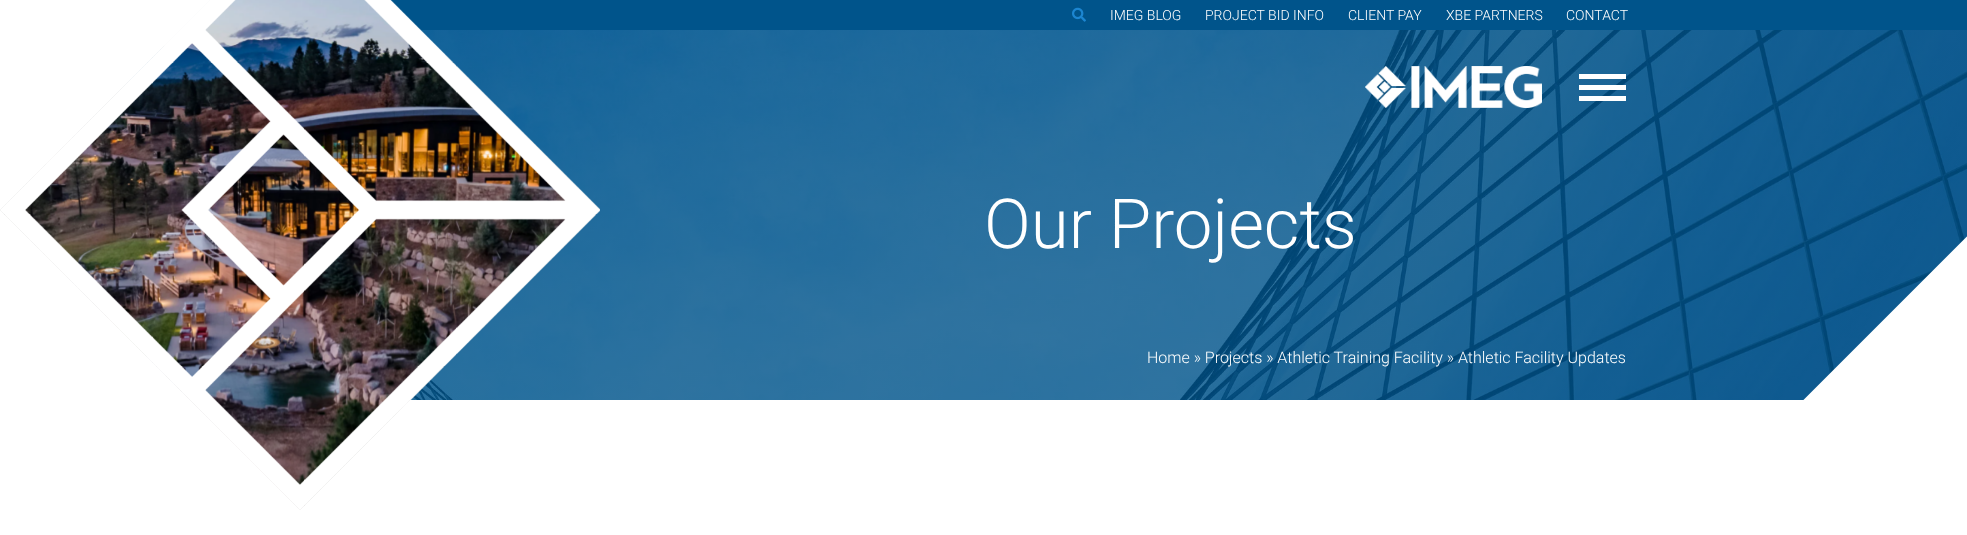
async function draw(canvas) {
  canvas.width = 1967;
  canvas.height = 535;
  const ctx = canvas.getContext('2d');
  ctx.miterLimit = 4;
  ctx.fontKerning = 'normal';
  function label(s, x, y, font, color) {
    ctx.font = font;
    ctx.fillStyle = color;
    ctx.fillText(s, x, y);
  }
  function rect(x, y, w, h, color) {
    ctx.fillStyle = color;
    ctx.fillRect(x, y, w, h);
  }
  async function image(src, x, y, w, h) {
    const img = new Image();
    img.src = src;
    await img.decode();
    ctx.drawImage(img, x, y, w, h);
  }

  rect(0, 0, 1967, 535, '#fff');
  rect(390, 0, 1577, 30, '#00548b');
  await image('assets/img5.png', 410, 30, 1557, 370);
  await image('assets/img2.png', 0, 0, 600, 510);
  await image('assets/img1.png', 0, 0, 600, 510);
  await image('assets/img3.png', 1072, 7, 14, 15);
  label('IMEG BLOG', 1110, 20, '300 14px Roboto', '#fff');
  label('PROJECT BID INFO', 1205, 20, '300 14px Roboto', '#fff');
  label('CLIENT PAY', 1348, 20, '300 14px Roboto', '#fff');
  label('XBE PARTNERS', 1446, 20, '300 14px Roboto', '#fff');
  label('CONTACT', 1566, 20, '300 14px Roboto', '#fff');
  await image('assets/img4.png', 1365, 66, 177, 42);
  rect(1579, 74, 47, 5, '#fff');
  rect(1579, 85, 47, 5, '#fff');
  rect(1579, 96, 47, 5, '#fff');
  label('Our Projects', 984, 248, '300 69px Roboto', '#fff');
  label('Home » Projects » Athletic Training Facility » Athletic Facility Updates', 1147, 363, '300 16px Roboto', '#fff');
  await image('assets/img6.png', 1803, 236, 164, 164);
}

draw(document.querySelector('canvas'));
